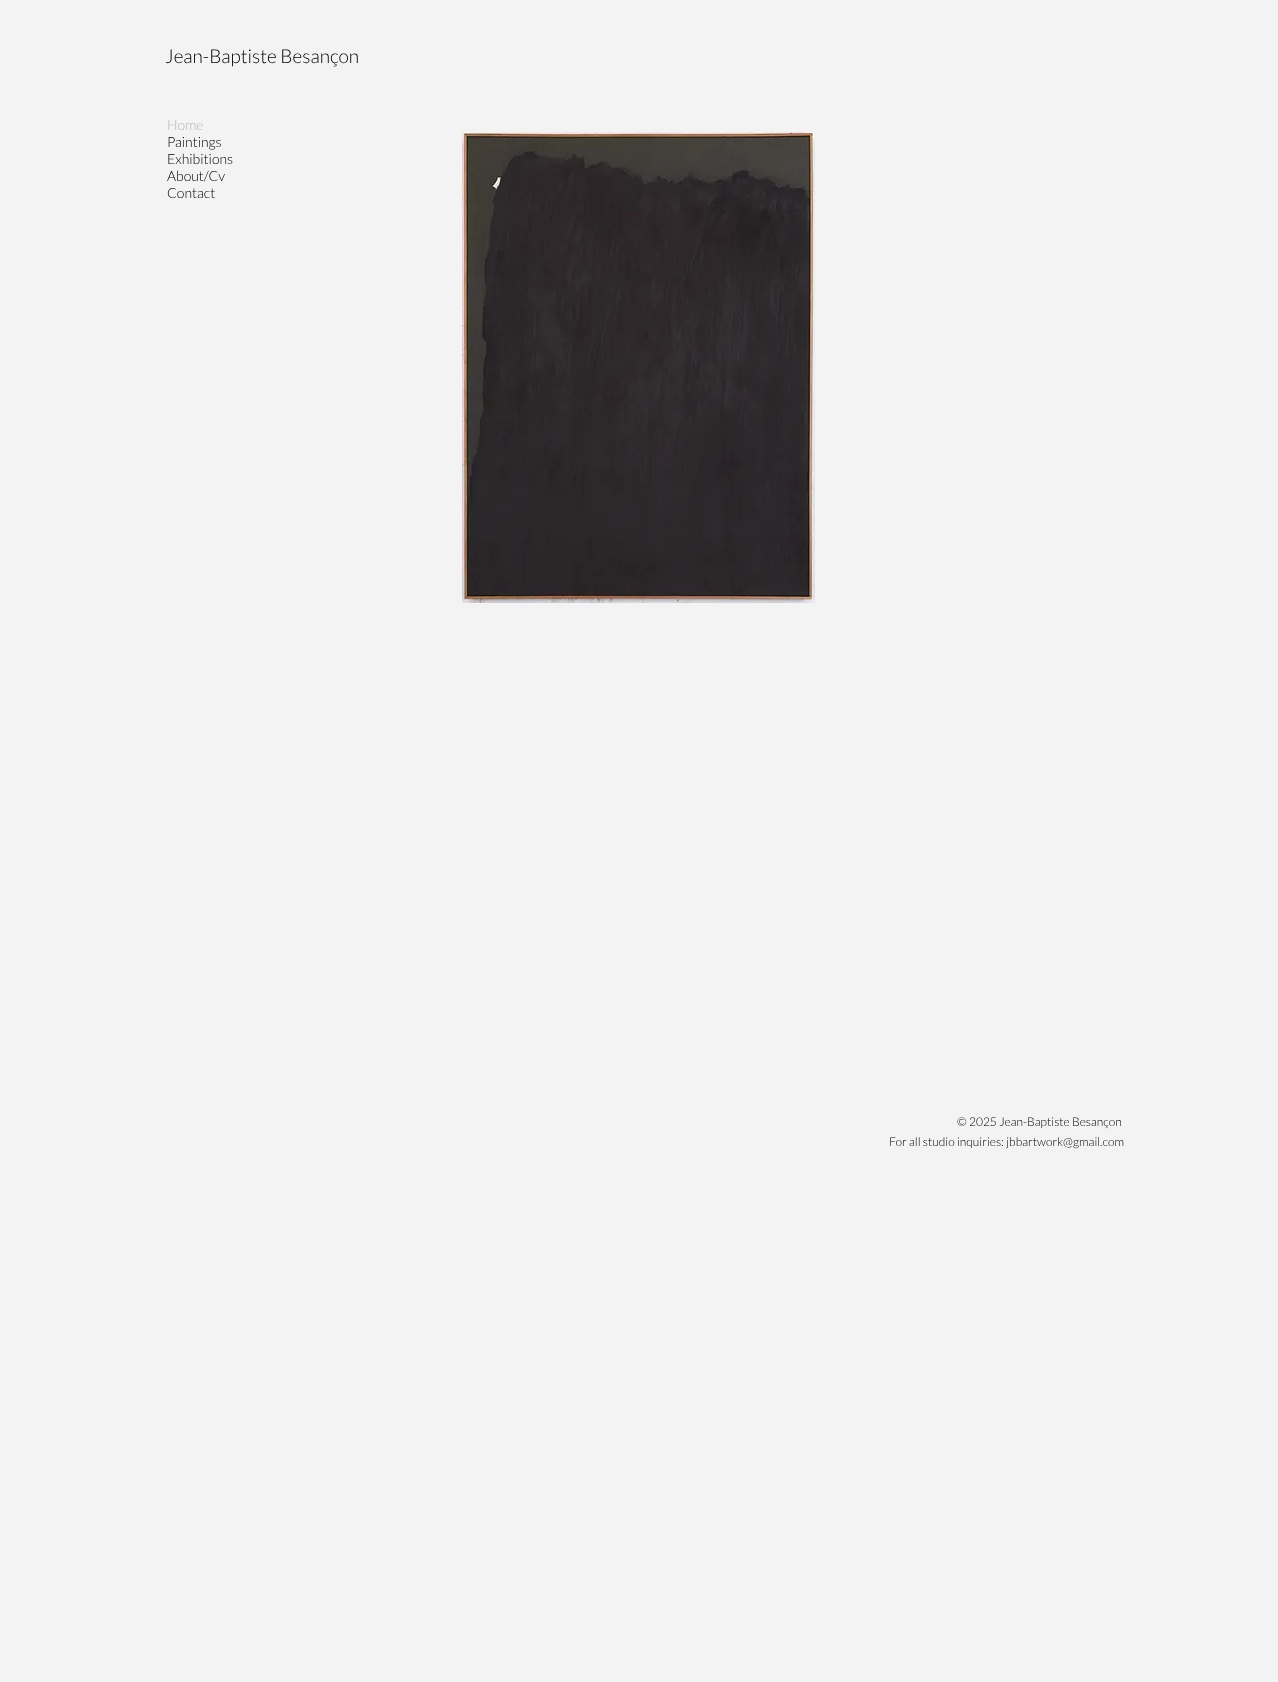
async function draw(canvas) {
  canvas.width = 1278;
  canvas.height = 1682;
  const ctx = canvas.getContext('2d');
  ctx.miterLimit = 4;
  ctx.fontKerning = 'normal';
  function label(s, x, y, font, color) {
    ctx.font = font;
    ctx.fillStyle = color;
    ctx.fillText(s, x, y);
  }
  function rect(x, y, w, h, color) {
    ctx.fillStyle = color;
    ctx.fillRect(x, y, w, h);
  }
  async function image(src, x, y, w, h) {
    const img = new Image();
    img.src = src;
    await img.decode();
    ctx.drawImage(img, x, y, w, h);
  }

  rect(0, 0, 1278, 1682, '#f3f3f3');
  label('Jean-Baptiste Besançon', 165, 63, '300 19px Lato', '#000');
  label('Home', 167, 130, '300 14px Lato', '#b9b9b9');
  label('Paintings', 167, 147, '300 14px Lato', '#000');
  label('Exhibitions', 167, 164, '300 14px Lato', '#000');
  label('About/Cv', 167, 181, '300 14px Lato', '#000');
  label('Contact', 167, 198, '300 14px Lato', '#000');
  await image('assets/img1.png', 462, 132, 353, 471);
  label('© 2025 Jean-Baptiste Besançon', 957, 1126, '300 12px Lato', '#000');
  label('For all studio inquiries: jbbartwork@gmail.com', 889, 1146, '300 12px Lato', '#000');
}

draw(document.querySelector('canvas'));
